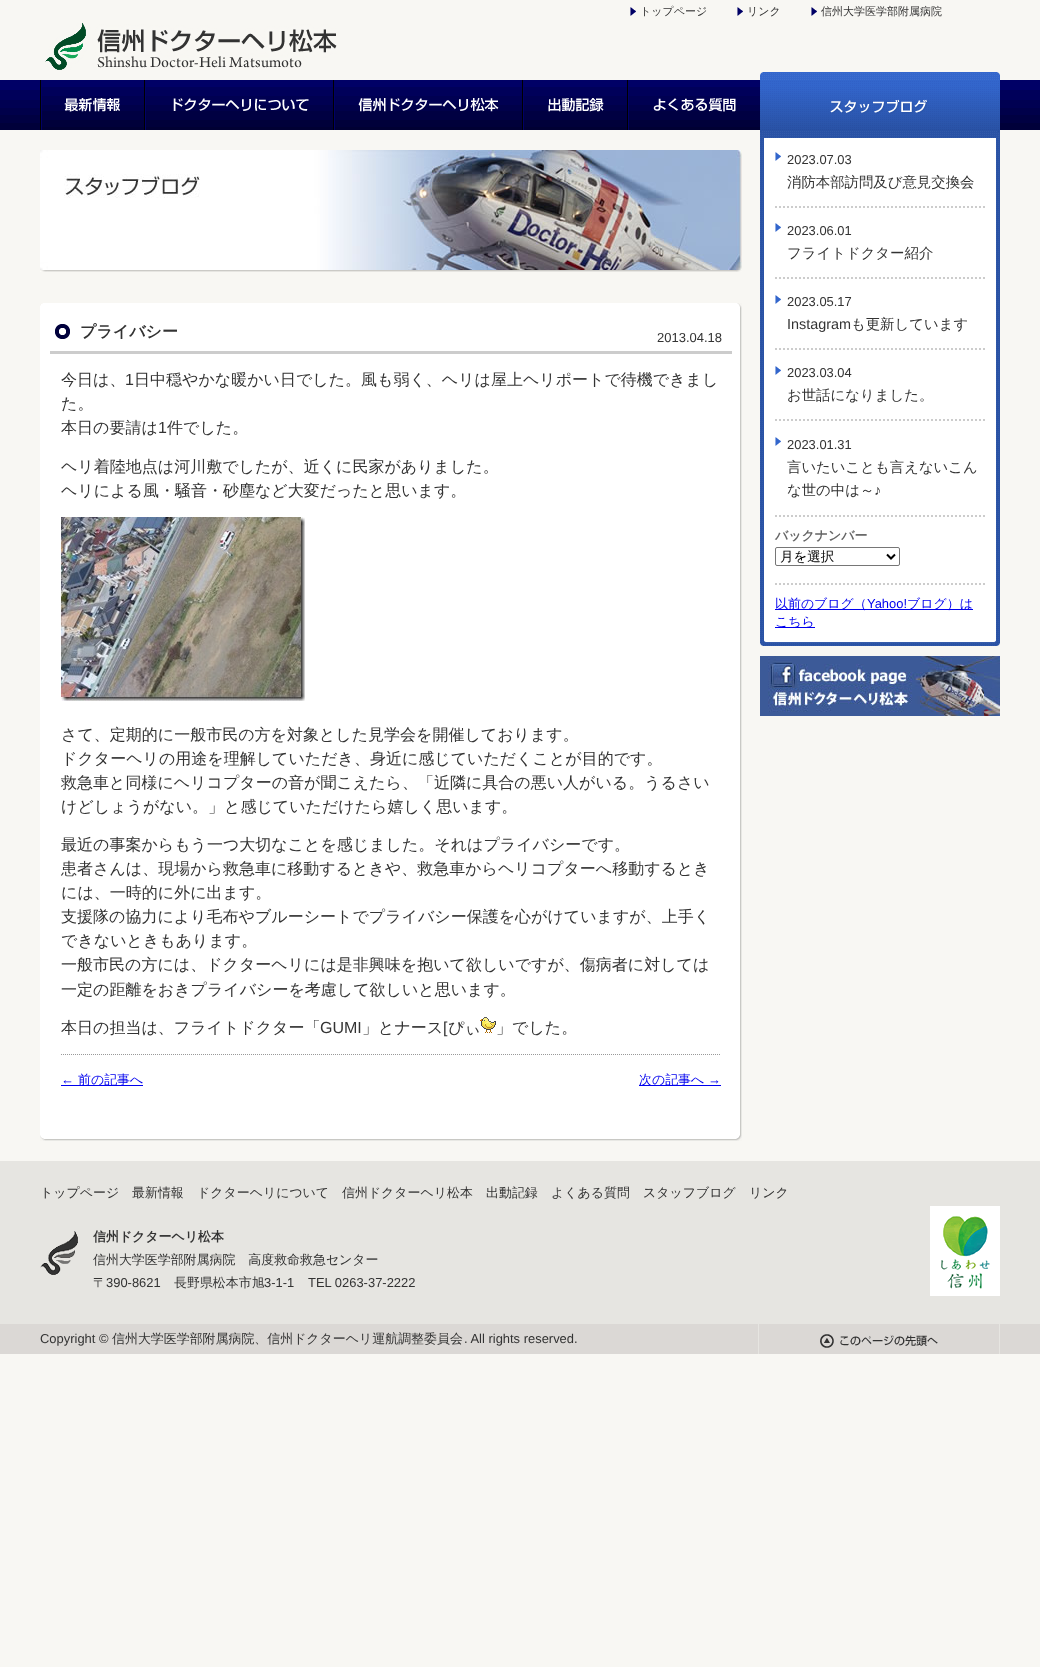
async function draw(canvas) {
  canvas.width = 1040;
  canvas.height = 1667;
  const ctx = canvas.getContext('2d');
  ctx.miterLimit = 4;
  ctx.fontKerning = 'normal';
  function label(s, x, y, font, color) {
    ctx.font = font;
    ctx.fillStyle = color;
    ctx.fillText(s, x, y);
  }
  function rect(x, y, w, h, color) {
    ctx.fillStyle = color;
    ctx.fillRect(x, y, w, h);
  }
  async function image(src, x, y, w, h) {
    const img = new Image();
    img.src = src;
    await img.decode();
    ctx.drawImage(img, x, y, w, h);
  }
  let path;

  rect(0, 0, 1040, 1667, '#f8f7f3');
  await image('assets/img1.png', 630, 7, 6, 9);
  label('トップページ', 640, 15, '500 11px WenQuanYi Zen Hei', '#333');
  await image('assets/img1.png', 737, 7, 6, 9);
  label('リンク', 747, 15, '500 11px WenQuanYi Zen Hei', '#333');
  await image('assets/img1.png', 811, 7, 6, 9);
  label('信州大学医学部附属病院', 821, 15, '500 11px WenQuanYi Zen Hei', '#333');
  await image('assets/img2.png', 45, 22, 292, 48);
  await image('assets/img3.png', 0, 80, 1040, 50);
  await image('assets/img4.png', 40, 80, 106, 50);
  await image('assets/img5.png', 146, 80, 189, 50);
  await image('assets/img6.png', 335, 80, 189, 50);
  await image('assets/img7.png', 524, 80, 105, 50);
  await image('assets/img8.png', 629, 87, 131, 43);
  await image('assets/img9.png', 40, 150, 702, 122);
  await image('assets/img10.png', 40, 308, 702, 827);
  await image('assets/img11.png', 40, 303, 702, 5);
  await image('assets/img12.png', 55, 324, 15, 15);
  rect(50, 351, 682, 3, '#ccc');
  label('プライバシー', 80, 337, 'bold 16px WenQuanYi Zen Hei', '#333');
  label('2013.04.18', 657, 342, '13px Liberation Sans', '#333');
  await image('assets/img13.png', 40, 1135, 702, 6);
  label('今日は、', 61, 385, '500 16px WenQuanYi Zen Hei', '#333');
  label('1', 125, 385, '16px Liberation Sans', '#333');
  label('日中穏やかな暖かい日でした。風も弱く、ヘリは屋上ヘリポートで待機できまし', 134, 385, '500 16px WenQuanYi Zen Hei', '#333');
  label('た。', 61, 409, '500 16px WenQuanYi Zen Hei', '#333');
  label('本日の要請は', 61, 433, '500 16px WenQuanYi Zen Hei', '#333');
  label('1', 158, 433, '16px Liberation Sans', '#333');
  label('件でした。', 167, 433, '500 16px WenQuanYi Zen Hei', '#333');
  label('ヘリ着陸地点は河川敷でしたが、近くに民家がありました。', 61, 472, '500 16px WenQuanYi Zen Hei', '#333');
  label('ヘリによる風・騒音・砂塵など大変だったと思います。', 61, 496, '500 16px WenQuanYi Zen Hei', '#333');
  await image('assets/img14.png', 61, 517, 244, 184);
  label('さて、定期的に一般市民の方を対象とした見学会を開催しております。', 61, 740, '500 16px WenQuanYi Zen Hei', '#333');
  label('ドクターヘリの用途を理解していただき、身近に感じていただくことが目的です。', 61, 764, '500 16px WenQuanYi Zen Hei', '#333');
  label('救急車と同様にヘリコプターの音が聞こえたら、「近隣に具合の悪い人がいる。うるさい', 61, 788, '500 16px WenQuanYi Zen Hei', '#333');
  label('けどしょうがない。」と感じていただけたら嬉しく思います。', 61, 812, '500 16px WenQuanYi Zen Hei', '#333');
  label('最近の事案からもう一つ大切なことを感じました。それはプライバシーです。', 61, 850, '500 16px WenQuanYi Zen Hei', '#333');
  label('患者さんは、現場から救急車に移動するときや、救急車からヘリコプターへ移動するとき', 61, 874, '500 16px WenQuanYi Zen Hei', '#333');
  label('には、一時的に外に出ます。', 61, 898, '500 16px WenQuanYi Zen Hei', '#333');
  label('支援隊の協力により毛布やブルーシートでプライバシー保護を心がけていますが、上手く', 61, 922, '500 16px WenQuanYi Zen Hei', '#333');
  label('できないときもあります。', 61, 946, '500 16px WenQuanYi Zen Hei', '#333');
  label('一般市民の方には、ドクターヘリには是非興味を抱いて欲しいですが、傷病者に対しては', 61, 970, '500 16px WenQuanYi Zen Hei', '#333');
  label('一定の距離をおきプライバシーを考慮して欲しいと思います。', 61, 995, '500 16px WenQuanYi Zen Hei', '#333');
  label('本日の担当は、フライトドクター「', 61, 1033, '500 16px WenQuanYi Zen Hei', '#333');
  label('GUMI', 320, 1033, '16px Liberation Sans', '#333');
  label('」とナース', 362, 1033, '500 16px WenQuanYi Zen Hei', '#333');
  label('[', 443, 1033, '16px Liberation Sans', '#333');
  label('ぴぃ', 448, 1033, '500 16px WenQuanYi Zen Hei', '#333');
  await image('assets/img15.png', 480, 1017, 16, 16);
  label('」でした。', 496, 1033, '500 16px WenQuanYi Zen Hei', '#333');
  path = new Path2D('M61 1054.5H721');
  ctx.strokeStyle = '#999';
  ctx.setLineDash([1, 1]);
  ctx.stroke(path);
  label('←', 61, 1084, '12.95px Liberation Sans', '#00e');
  rect(61, 1085, 82, 1, '#00e');
  label('前の記事へ', 78, 1084, '500 12.95px WenQuanYi Zen Hei', '#00e');
  rect(639, 1085, 82, 1, '#00e');
  label('次の記事へ', 639, 1084, '500 12.95px WenQuanYi Zen Hei', '#00e');
  label('→', 708, 1084, '12.95px Liberation Sans', '#00e');
  await image('assets/img16.png', 760, 72, 240, 66);
  await image('assets/img17.png', 760, 138, 240, 508);
  await image('assets/img18.png', 775, 152, 6, 9);
  path = new Path2D('M775 207H985');
  ctx.strokeStyle = '#ccc';
  ctx.lineWidth = 2;
  ctx.setLineDash([2, 2]);
  ctx.stroke(path);
  label('2023.07.03', 787, 164, '12.95px Liberation Sans', '#333');
  label('消防本部訪問及び意見交換会', 787, 187, '500 14.4px WenQuanYi Zen Hei', '#333');
  await image('assets/img18.png', 775, 223, 6, 9);
  path = new Path2D('M775 278H985');
  ctx.stroke(path);
  label('2023.06.01', 787, 235, '12.95px Liberation Sans', '#333');
  label('フライトドクター紹介', 787, 258, '500 14.4px WenQuanYi Zen Hei', '#333');
  await image('assets/img18.png', 775, 295, 6, 9);
  path = new Path2D('M775 349H985');
  ctx.stroke(path);
  label('2023.05.17', 787, 306, '12.95px Liberation Sans', '#333');
  label('Instagram', 787, 329, '14.4px Liberation Sans', '#333');
  label('も更新しています', 851, 329, '500 14.4px WenQuanYi Zen Hei', '#333');
  await image('assets/img18.png', 775, 366, 6, 9);
  path = new Path2D('M775 420H985');
  ctx.stroke(path);
  label('2023.03.04', 787, 377, '12.95px Liberation Sans', '#333');
  label('お世話になりました。', 787, 400, '500 14.4px WenQuanYi Zen Hei', '#333');
  await image('assets/img18.png', 775, 437, 6, 9);
  label('2023.01.31', 787, 449, '12.95px Liberation Sans', '#333');
  label('言いたいことも言えないこん', 787, 472, '500 14.4px WenQuanYi Zen Hei', '#333');
  label('な世の中は～', 787, 495, '500 14.4px WenQuanYi Zen Hei', '#333');
  label('♪', 874, 495, '14.4px Liberation Sans', '#333');
  path = new Path2D('M775 516H985');
  ctx.stroke(path);
  label('バックナンバー', 775, 540, 'bold 12.95px WenQuanYi Zen Hei', '#666');
  ctx.beginPath();
  ctx.roundRect(775.5, 547.5, 124, 18, 1.5);
  ctx.strokeStyle = '#767676';
  ctx.lineWidth = 1;
  ctx.setLineDash([]);
  ctx.stroke();
  path = new Path2D('M887 554.5L891 558.5L895 554.5');
  ctx.strokeStyle = '#000';
  ctx.lineWidth = 2;
  ctx.stroke(path);
  label('月を選択', 780, 561, '500 13.5px WenQuanYi Zen Hei', '#000');
  path = new Path2D('M775 584H985');
  ctx.strokeStyle = '#ccc';
  ctx.setLineDash([2, 2]);
  ctx.stroke(path);
  rect(775, 609, 198, 1, '#00e');
  label('以前のブログ（', 775, 608, '500 12.95px WenQuanYi Zen Hei', '#00e');
  label('Yahoo!', 867, 608, '12.95px Liberation Sans', '#00e');
  label('ブログ）は', 907, 608, '500 12.95px WenQuanYi Zen Hei', '#00e');
  rect(775, 627, 40, 1, '#00e');
  label('こちら', 775, 626, '500 12.95px WenQuanYi Zen Hei', '#00e');
  await image('assets/img19.png', 760, 656, 240, 60);
  rect(0, 1161, 1040, 163, '#e6e5e1');
  rect(0, 1324, 1040, 30, '#dbd8d5');
  label('トップページ', 40, 1197, '500 12.95px WenQuanYi Zen Hei', '#333');
  label('最新情報', 132, 1197, '500 12.95px WenQuanYi Zen Hei', '#333');
  label('ドクターヘリについて', 197, 1197, '500 12.95px WenQuanYi Zen Hei', '#333');
  label('信州ドクターヘリ松本', 342, 1197, '500 12.95px WenQuanYi Zen Hei', '#333');
  label('出動記録', 486, 1197, '500 12.95px WenQuanYi Zen Hei', '#333');
  label('よくある質問', 551, 1197, '500 12.95px WenQuanYi Zen Hei', '#333');
  label('スタッフブログ', 643, 1197, '500 12.95px WenQuanYi Zen Hei', '#333');
  label('リンク', 749, 1197, '500 12.95px WenQuanYi Zen Hei', '#333');
  await image('assets/img20.png', 40, 1231, 38, 44);
  label('信州ドクターヘリ松本', 93, 1241, 'bold 12.95px WenQuanYi Zen Hei', '#333');
  label('信州大学医学部附属病院　高度救命救急センター', 93, 1264, '500 12.95px WenQuanYi Zen Hei', '#333');
  label('〒', 93, 1287, '500 12.95px WenQuanYi Zen Hei', '#333');
  label('390-8621', 106, 1287, '12.95px Liberation Sans', '#333');
  label('長野県松本市旭', 174, 1287, '500 12.95px WenQuanYi Zen Hei', '#333');
  label('3-1-1', 264, 1287, '12.95px Liberation Sans', '#333');
  label('TEL 0263-37-2222', 308, 1287, '12.95px Liberation Sans', '#333');
  await image('assets/img21.png', 930, 1206, 70, 90);
  label('Copyright ©', 40, 1343, '12.95px Liberation Sans', '#333');
  label('信州大学医学部附属病院、信州ドクターヘリ運航調整委員会', 112, 1343, '500 12.95px WenQuanYi Zen Hei', '#333');
  label('. All rights reserved.', 464, 1343, '12.95px Liberation Sans', '#333');
  rect(999, 1324, 1, 30, '#e6e5e1');
  rect(758, 1324, 1, 30, '#e6e5e1');
  await image('assets/img22.png', 820, 1334, 118, 14);
}

draw(document.querySelector('canvas'));
